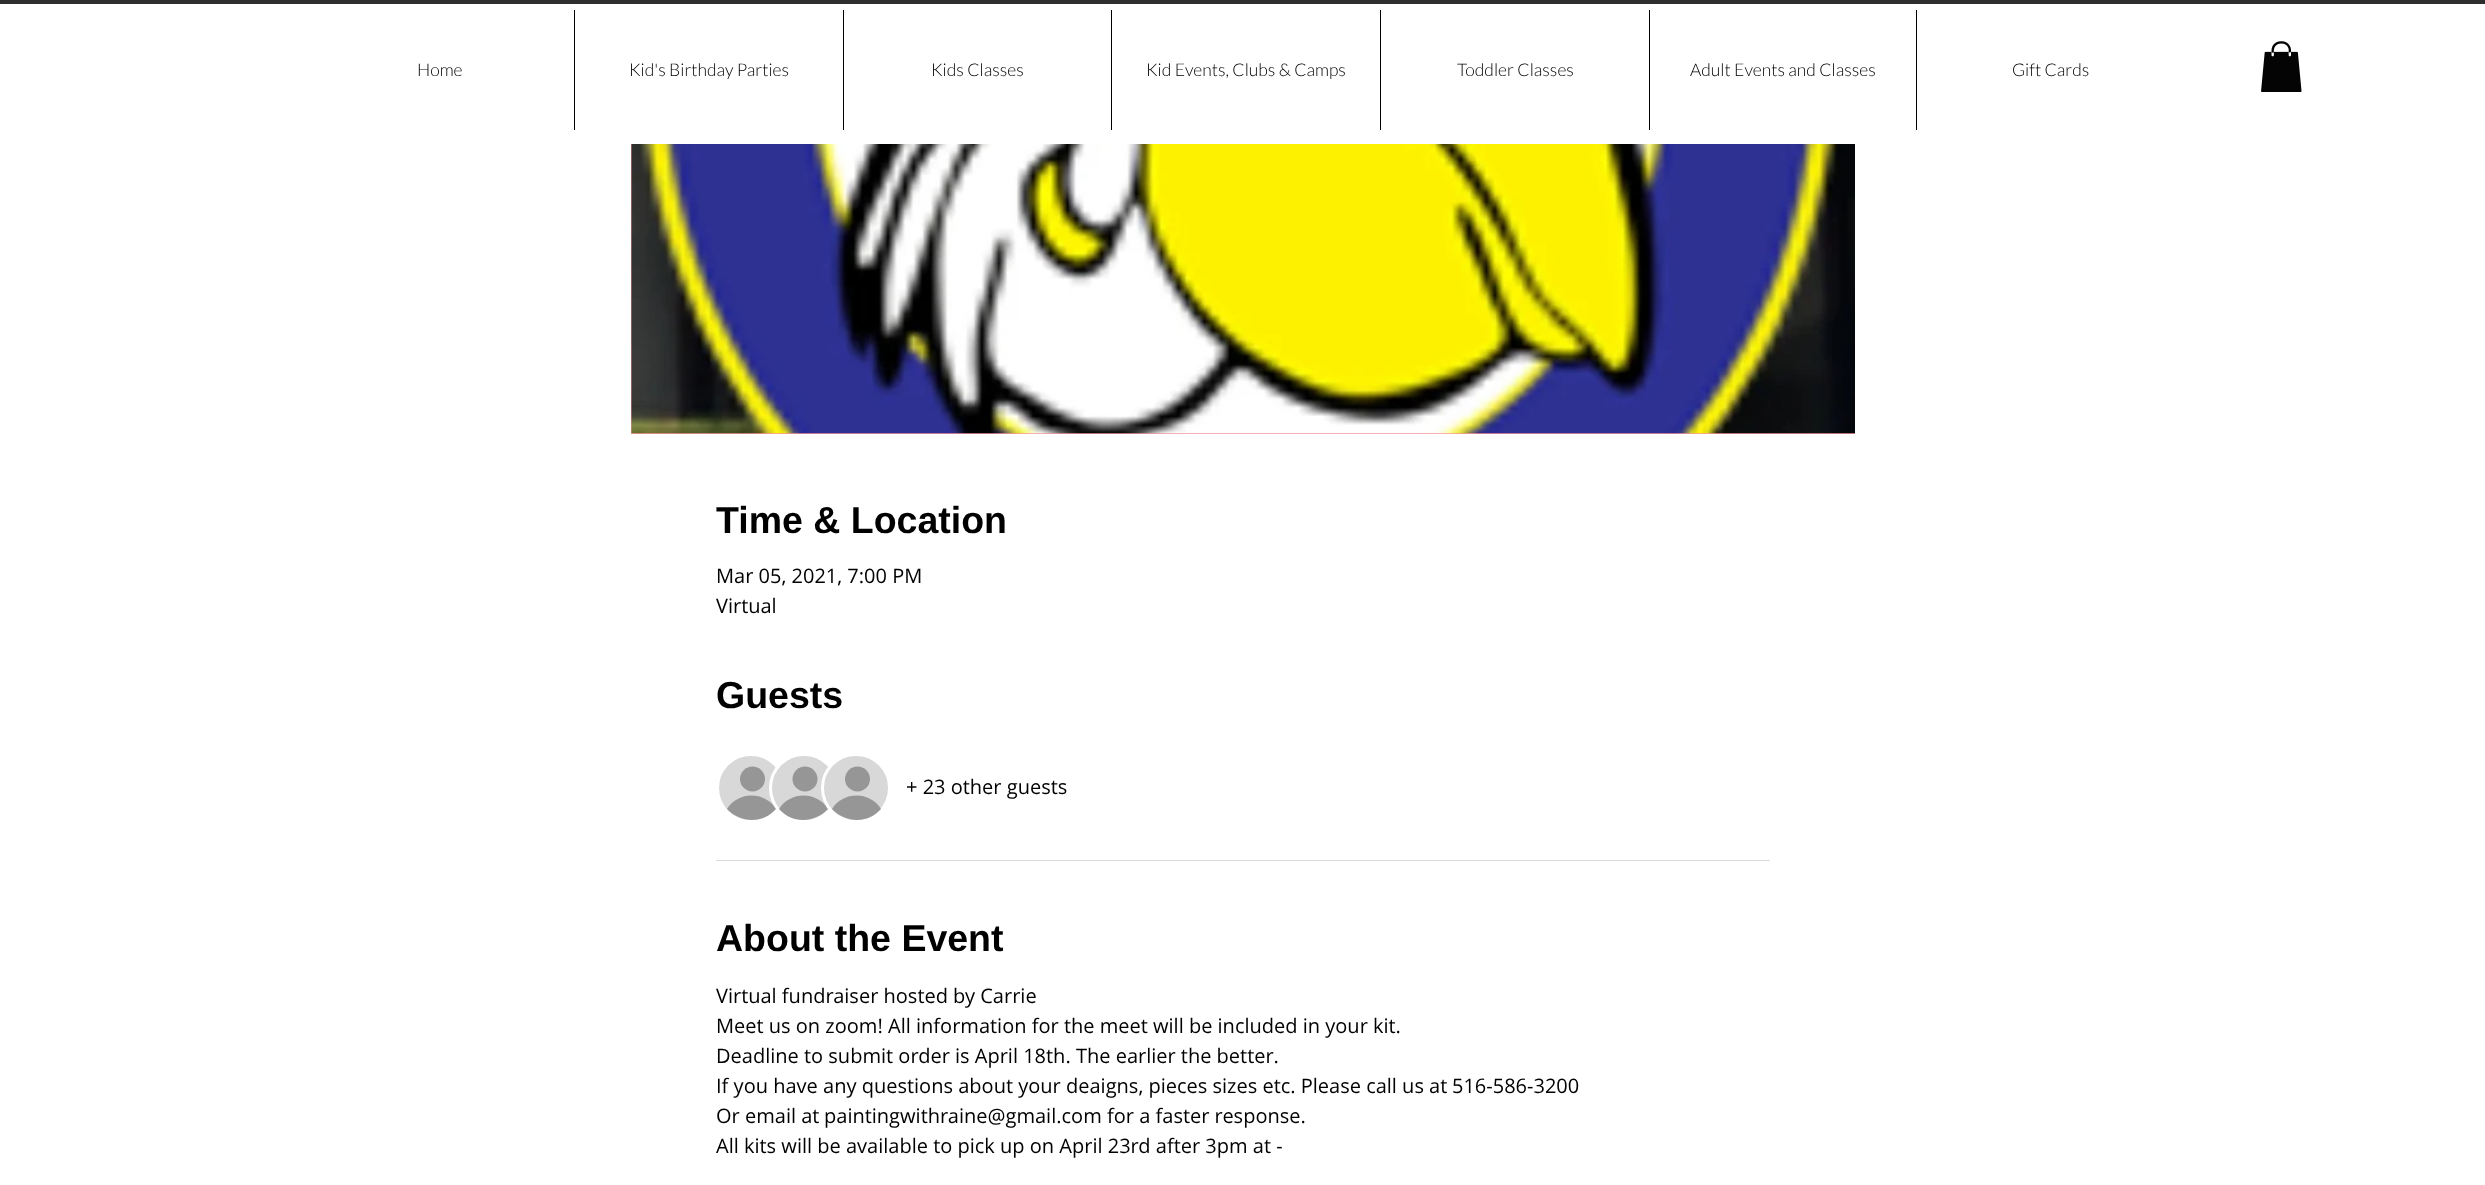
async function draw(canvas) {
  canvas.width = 2485;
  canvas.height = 1185;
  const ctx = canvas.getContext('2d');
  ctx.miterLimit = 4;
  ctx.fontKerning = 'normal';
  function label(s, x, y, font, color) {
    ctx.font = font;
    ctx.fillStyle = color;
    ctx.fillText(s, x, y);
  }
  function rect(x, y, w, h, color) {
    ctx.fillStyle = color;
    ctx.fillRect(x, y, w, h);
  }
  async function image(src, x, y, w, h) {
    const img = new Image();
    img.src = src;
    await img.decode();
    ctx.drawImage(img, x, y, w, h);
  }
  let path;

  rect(0, 0, 2485, 1185, '#fff');
  rect(0, 0, 2485, 4, '#2f2e2e');
  label('Home', 417, 76, '300 17.5px Lato', '#000');
  rect(574, 10, 1, 120, '#000');
  label('Kid\'s Birthday Parties', 629, 76, '300 17.5px Lato', '#000');
  rect(843, 10, 1, 120, '#000');
  label('Kids Classes', 931, 76, '300 17.5px Lato', '#000');
  rect(1111, 10, 1, 120, '#000');
  label('Kid Events, Clubs & Camps', 1146, 76, '300 17.5px Lato', '#000');
  rect(1380, 10, 1, 120, '#000');
  label('Toddler Classes', 1457, 76, '300 17.5px Lato', '#000');
  rect(1649, 10, 1, 120, '#000');
  label('Adult Events and Classes', 1690, 76, '300 17.5px Lato', '#000');
  rect(1916, 10, 1, 120, '#000');
  label('Gift Cards', 2012, 76, '300 17.5px Lato', '#000');
  await image('assets/img1.png', 2261, 41, 41, 51);
  rect(631, 144, 1224, 290, '#f9959d');
  await image('assets/img2.png', 631, 144, 1224, 290);
  label('Time & Location', 716, 533, 'bold 37.5px Liberation Sans', '#000');
  label('Mar 05, 2021, 7:00 PM', 716, 583, '20px Open Sans', '#000');
  label('Virtual', 716, 613, '20px Open Sans', '#000');
  label('Guests', 716, 708, 'bold 37.5px Liberation Sans', '#000');
  ctx.fillStyle = '#d8d8d8';
  ctx.beginPath();
  ctx.arc(751, 788, 33.5, 0, 2 * Math.PI);
  ctx.fill();
  ctx.strokeStyle = '#fff';
  ctx.lineWidth = 3;
  ctx.stroke();
  ctx.fillStyle = '#969696';
  ctx.beginPath();
  ctx.arc(752.5, 779, 12.5, 0, 2 * Math.PI);
  ctx.fill();
  path = new Path2D('M776 809C763 824 740 823 727 809C738 791 765 791 776 809Z');
  ctx.fill(path);
  ctx.fillStyle = '#d8d8d8';
  ctx.beginPath();
  ctx.arc(804, 788, 33.5, 0, 2 * Math.PI);
  ctx.fill();
  ctx.stroke();
  ctx.fillStyle = '#969696';
  ctx.beginPath();
  ctx.arc(805, 779, 12.5, 0, 2 * Math.PI);
  ctx.fill();
  path = new Path2D('M828 809C815 823 792 824 779 809C790 791 817 791 828 809Z');
  ctx.fill(path);
  ctx.fillStyle = '#d8d8d8';
  ctx.beginPath();
  ctx.arc(856, 788, 33.5, 0, 2 * Math.PI);
  ctx.fill();
  ctx.stroke();
  ctx.fillStyle = '#969696';
  ctx.beginPath();
  ctx.arc(857.5, 779, 12.5, 0, 2 * Math.PI);
  ctx.fill();
  path = new Path2D('M881 809C868 824 845 823 832 809C843 791 870 791 881 809Z');
  ctx.fill(path);
  label('+ 23 other guests', 906, 794, '20px Open Sans', '#000');
  rect(716, 860, 1054, 1, '#d9d9d9');
  label('About the Event', 716, 951, 'bold 37.5px Liberation Sans', '#000');
  label('Virtual fundraiser hosted by Carrie', 716, 1003, '20px Open Sans', '#000');
  label('Meet us on zoom! All information for the meet will be included in your kit.', 716, 1033, '20px Open Sans', '#000');
  label('Deadline to submit order is April 18th. The earlier the better.', 716, 1063, '20px Open Sans', '#000');
  label('If you have any questions about your deaigns, pieces sizes etc. Please call us at', 716, 1093, '20px Open Sans', '#000');
  label('516-586-3200', 1452, 1093, '20px Open Sans', '#000');
  label('Or email at', 716, 1123, '20px Open Sans', '#000');
  label('paintingwithraine@gmail.com', 824, 1123, '20px Open Sans', '#000');
  label('for a faster response.', 1107, 1123, '20px Open Sans', '#000');
  label('All kits will be available to pick up on April 23rd after 3pm at -', 716, 1153, '20px Open Sans', '#000');
}

draw(document.querySelector('canvas'));
